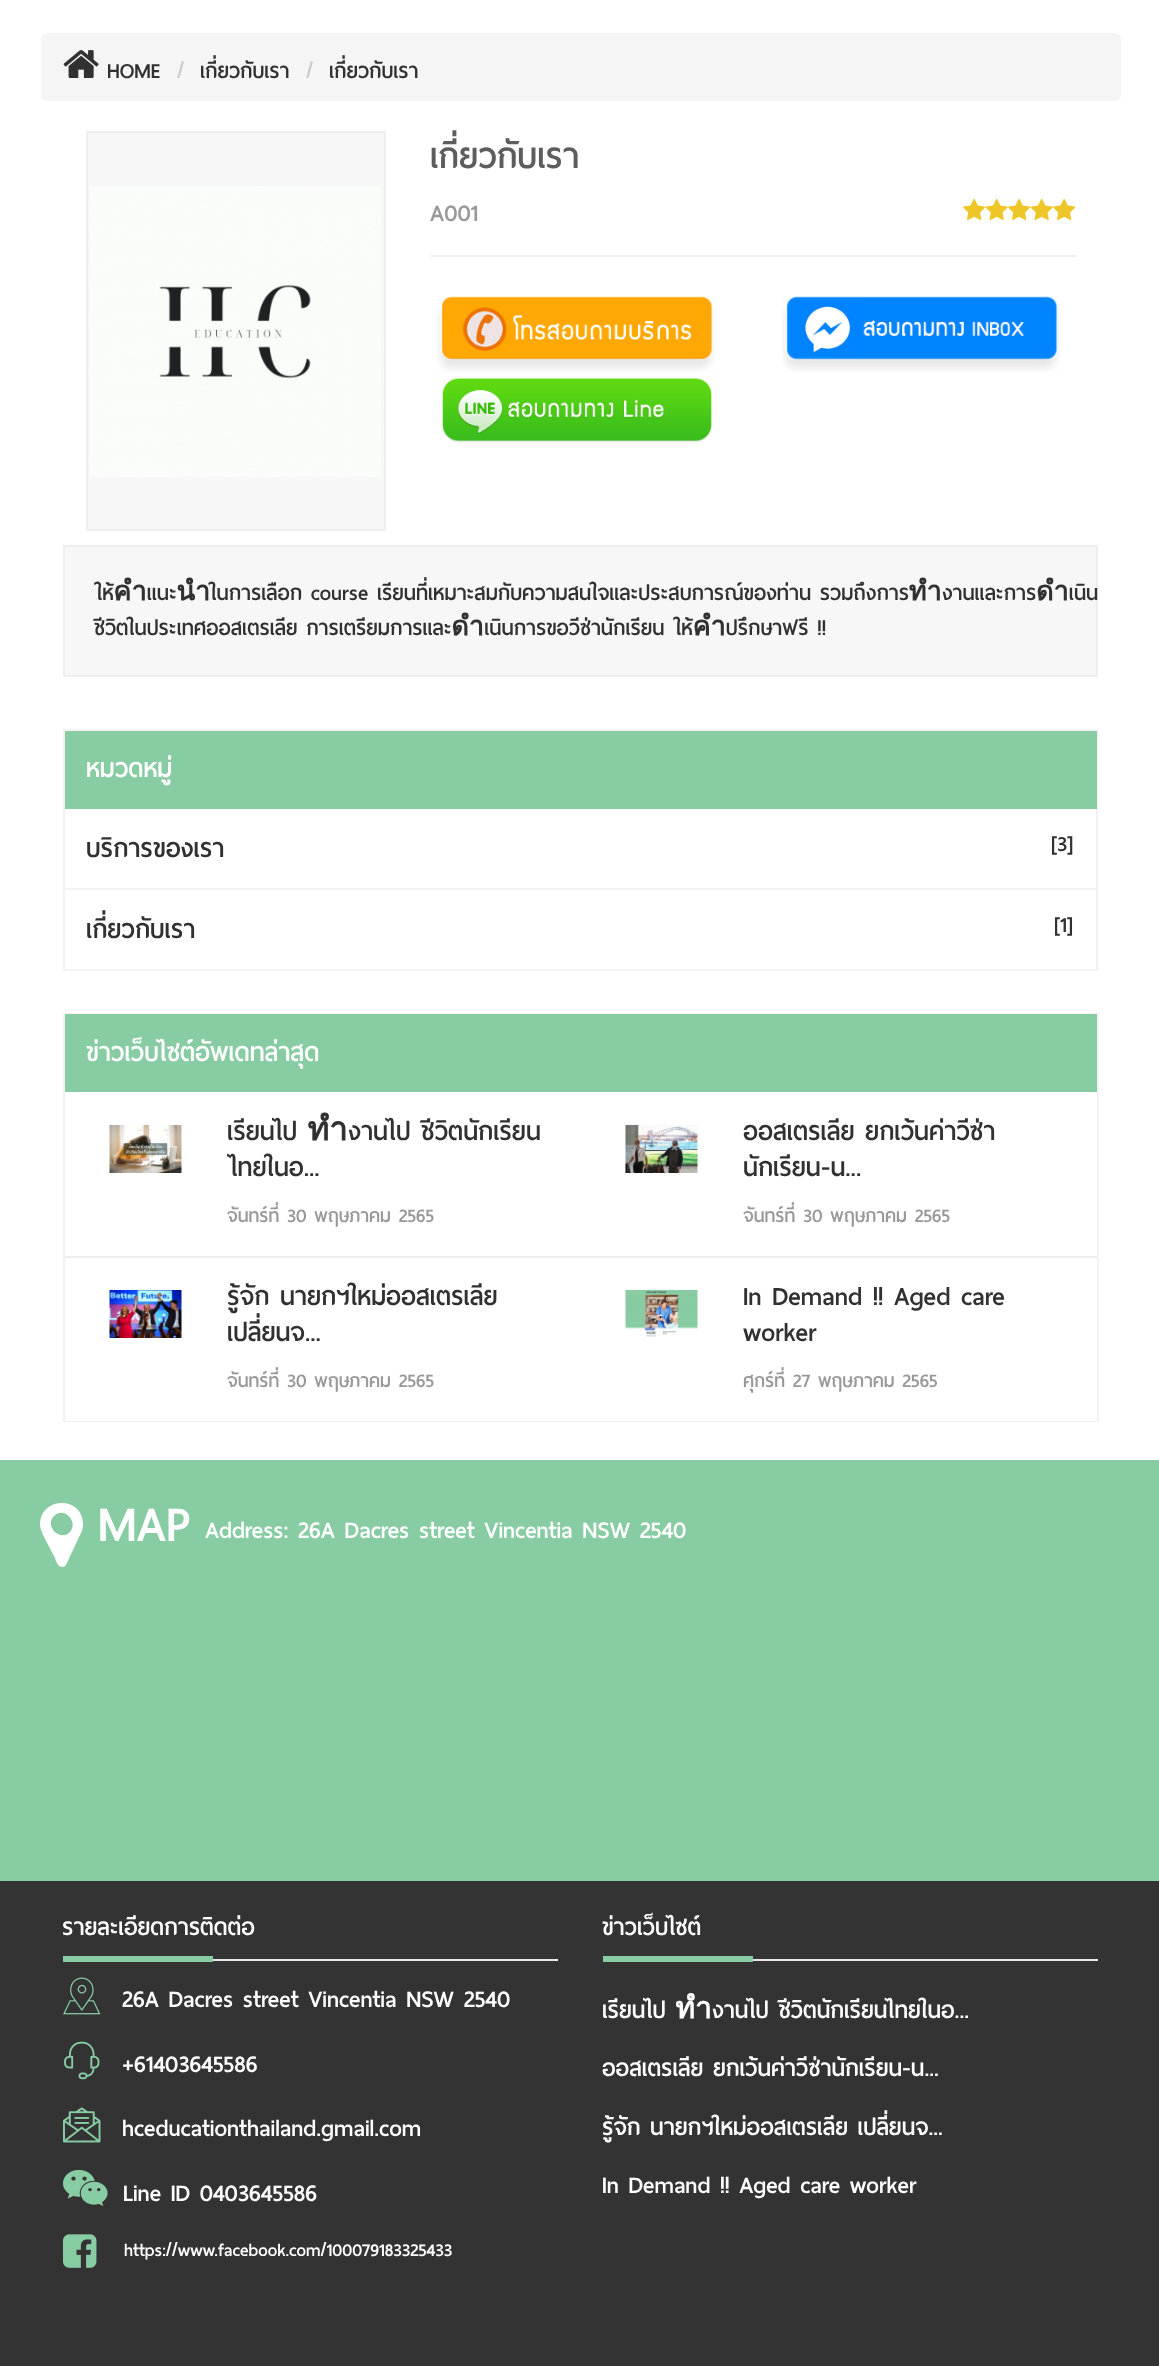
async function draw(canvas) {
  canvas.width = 1159;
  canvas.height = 2366;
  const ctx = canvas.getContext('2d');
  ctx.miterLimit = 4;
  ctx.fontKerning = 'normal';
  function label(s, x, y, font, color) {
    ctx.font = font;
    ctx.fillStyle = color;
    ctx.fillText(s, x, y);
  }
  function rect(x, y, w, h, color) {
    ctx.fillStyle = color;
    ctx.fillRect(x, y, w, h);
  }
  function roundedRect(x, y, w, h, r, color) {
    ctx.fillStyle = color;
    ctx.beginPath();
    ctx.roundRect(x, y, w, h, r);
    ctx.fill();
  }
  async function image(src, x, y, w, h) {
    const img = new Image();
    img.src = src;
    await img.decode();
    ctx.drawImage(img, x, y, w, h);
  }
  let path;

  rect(0, 0, 1159, 2366, '#fff');
  roundedRect(41, 33, 1080, 68, 6, '#f5f5f5');
  await image('assets/img1.png', 63, 50, 36, 28);
  label('HOME', 107, 78, 'bold 27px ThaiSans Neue', '#313131');
  label('/', 177, 78, 'bold 27px ThaiSans Neue', '#ccc');
  label('เกี่ยวกับเรา', 200, 78, 'bold 27px ThaiSans Neue', '#313131');
  label('/', 306, 78, 'bold 27px ThaiSans Neue', '#ccc');
  label('เกี่ยวกับเรา', 329, 78, 'bold 27px ThaiSans Neue', '#313131');
  ctx.fillStyle = '#f7f7f7';
  ctx.beginPath();
  ctx.rect(87, 132, 298, 398);
  ctx.fill();
  ctx.strokeStyle = '#eee';
  ctx.lineWidth = 2;
  ctx.stroke();
  await image('assets/img2.png', 90, 186, 291, 291);
  label('เกี่ยวกับเรา', 430, 168, 'bold 45px ThaiSans Neue', '#5d5d5d');
  rect(431, 255, 645, 2, '#eee');
  label('A001', 430, 221, 'bold 30px ThaiSans Neue', '#999');
  await image('assets/img3.png', 963, 198, 23, 23);
  await image('assets/img4.png', 985, 198, 23, 23);
  await image('assets/img3.png', 1008, 198, 23, 23);
  await image('assets/img4.png', 1030, 198, 23, 23);
  await image('assets/img3.png', 1053, 198, 23, 23);
  await image('assets/img5.png', 437, 296, 278, 76);
  await image('assets/img6.png', 782, 296, 278, 76);
  await image('assets/img7.png', 442, 378, 270, 65);
  ctx.fillStyle = '#f7f7f7';
  ctx.beginPath();
  ctx.rect(64, 546, 1033, 130);
  ctx.fill();
  ctx.stroke();
  label('ให้คำแนะนำในการเลือก course เรียนที่เหมาะสมกับความสนใจและประสบการณ์ของท่าน รวมถึงการทำงานและการดำเนิน', 94, 600, 'bold 27px ThaiSans Neue', '#313131');
  label('ชีวิตในประเทศออสเตรเลีย การเตรียมการและดำเนินการขอวีซ่านักเรียน ให้คำปรึกษาฟรี !!', 94, 635, 'bold 27px ThaiSans Neue', '#313131');
  ctx.strokeStyle = '#f2f2f2';
  ctx.strokeRect(64, 730, 1033, 240);
  rect(65, 731, 1032, 78, '#88cca3');
  label('หมวดหมู่', 86, 777, 'bold 33px ThaiSans Neue', '#fff');
  rect(65, 888, 1032, 2, '#f2f2f2');
  label('บริการของเรา', 86, 857, 'bold 33px ThaiSans Neue', '#313131');
  label('[3]', 1051, 851, 'bold 27px ThaiSans Neue', '#313131');
  label('เกี่ยวกับเรา', 86, 938, 'bold 33px ThaiSans Neue', '#313131');
  label('[1]', 1054, 932, 'bold 27px ThaiSans Neue', '#313131');
  rect(63, 1013, 1035, 1, '#f2f2f2');
  rect(1097, 1013, 2, 409, '#f2f2f2');
  rect(63, 1013, 2, 409, '#f2f2f2');
  rect(65, 1014, 1032, 78, '#88cca3');
  label('ข่าวเว็บไซต์อัพเดทล่าสุด', 86, 1061, 'bold 33px ThaiSans Neue', '#fff');
  rect(65, 1256, 1032, 2, '#eee');
  await image('assets/img8.png', 109, 1125, 73, 48);
  label('เรียนไป ทำงานไป ชีวิตนักเรียน', 227, 1140, 'bold 33px ThaiSans Neue', '#313131');
  label('ไทยในอ...', 227, 1176, 'bold 33px ThaiSans Neue', '#313131');
  label('จันทร์ที่ 30 พฤษภาคม 2565', 227, 1222, 'bold 24px ThaiSans Neue', '#999');
  await image('assets/img9.png', 625, 1125, 73, 48);
  label('ออสเตรเลีย ยกเว้นค่าวีซ่า', 743, 1140, 'bold 33px ThaiSans Neue', '#313131');
  label('นักเรียน-น...', 743, 1176, 'bold 33px ThaiSans Neue', '#313131');
  label('จันทร์ที่ 30 พฤษภาคม 2565', 743, 1222, 'bold 24px ThaiSans Neue', '#999');
  rect(65, 1421, 1032, 1, '#eee');
  await image('assets/img10.png', 109, 1290, 73, 48);
  label('รู้จัก นายกฯใหม่ออสเตรเลีย', 227, 1305, 'bold 33px ThaiSans Neue', '#313131');
  label('เปลี่ยนจ...', 227, 1341, 'bold 33px ThaiSans Neue', '#313131');
  label('จันทร์ที่ 30 พฤษภาคม 2565', 227, 1387, 'bold 24px ThaiSans Neue', '#999');
  await image('assets/img11.png', 625, 1290, 73, 47);
  label('In Demand !! Aged care', 743, 1305, 'bold 33px ThaiSans Neue', '#313131');
  label('worker', 743, 1341, 'bold 33px ThaiSans Neue', '#313131');
  label('ศุกร์ที่ 27 พฤษภาคม 2565', 743, 1387, 'bold 24px ThaiSans Neue', '#999');
  rect(0, 1460, 1159, 421, '#88cca3');
  ctx.fillStyle = '#fff';
  path = new Path2D('M70 1532C79 1522 64 1506 54 1516C44 1526 60 1542 70 1532ZM83 1524C83 1529 82 1532 79 1537L66 1565C65 1566 64 1567 63 1567C58 1567 56 1562 55 1558L44 1537C42 1532 40 1529 40 1524C41 1496 83 1496 83 1524Z');
  ctx.fill(path);
  label('MAP', 98, 1541, 'bold 63px ThaiSans Neue', '#fff');
  label('Address: 26A Dacres street Vincentia NSW 2540', 205, 1538, 'bold 30px ThaiSans Neue', '#fff');
  rect(0, 1881, 1159, 485, '#333');
  rect(213, 1959, 345, 2, '#e8e8e8');
  label('รายละเอียดการติดต่อ', 62, 1935, 'bold 30px ThaiSans Neue', '#fff');
  rect(63, 1956, 150, 6, '#88cca3');
  await image('assets/img12.png', 63, 1977, 38, 38);
  label('26A Dacres street Vincentia NSW 2540', 122, 2007, 'bold 30px ThaiSans Neue', '#fff');
  await image('assets/img13.png', 64, 2041, 36, 39);
  label('+61403645586', 122, 2072, 'bold 30px ThaiSans Neue', '#fff');
  await image('assets/img14.png', 63, 2107, 38, 36);
  label('hceducationthailand.gmail.com', 122, 2136, 'bold 30px ThaiSans Neue', '#fff');
  await image('assets/img15.png', 63, 2169, 45, 38);
  label('Line ID 0403645586', 123, 2201, 'bold 30px ThaiSans Neue', '#fff');
  await image('assets/img16.png', 63, 2234, 34, 34);
  label('https://www.facebook.com/100079183325433', 124, 2256, 'bold 22.5px ThaiSans Neue', '#fff');
  rect(753, 1959, 345, 2, '#e8e8e8');
  label('ข่าวเว็บไซต์', 602, 1935, 'bold 30px ThaiSans Neue', '#fff');
  rect(603, 1956, 150, 6, '#88cca3');
  ctx.save();
  ctx.beginPath();
  ctx.rect(603, 1976, 495, 58);
  ctx.clip();
  label('เรียนไป ทำงานไป ชีวิตนักเรียนไทยในอ...', 602, 2018, 'bold 30px ThaiSans Neue', '#fff');
  ctx.restore();
  label('ออสเตรเลีย ยกเว้นค่าวีซ่านักเรียน-น...', 602, 2076, 'bold 30px ThaiSans Neue', '#fff');
  ctx.save();
  ctx.beginPath();
  ctx.rect(603, 2093, 495, 58);
  ctx.clip();
  label('รู้จัก นายกฯใหม่ออสเตรเลีย เปลี่ยนจ...', 602, 2135, 'bold 30px ThaiSans Neue', '#fff');
  ctx.restore();
  label('In Demand !! Aged care worker', 602, 2193, 'bold 30px ThaiSans Neue', '#fff');
}

draw(document.querySelector('canvas'));
